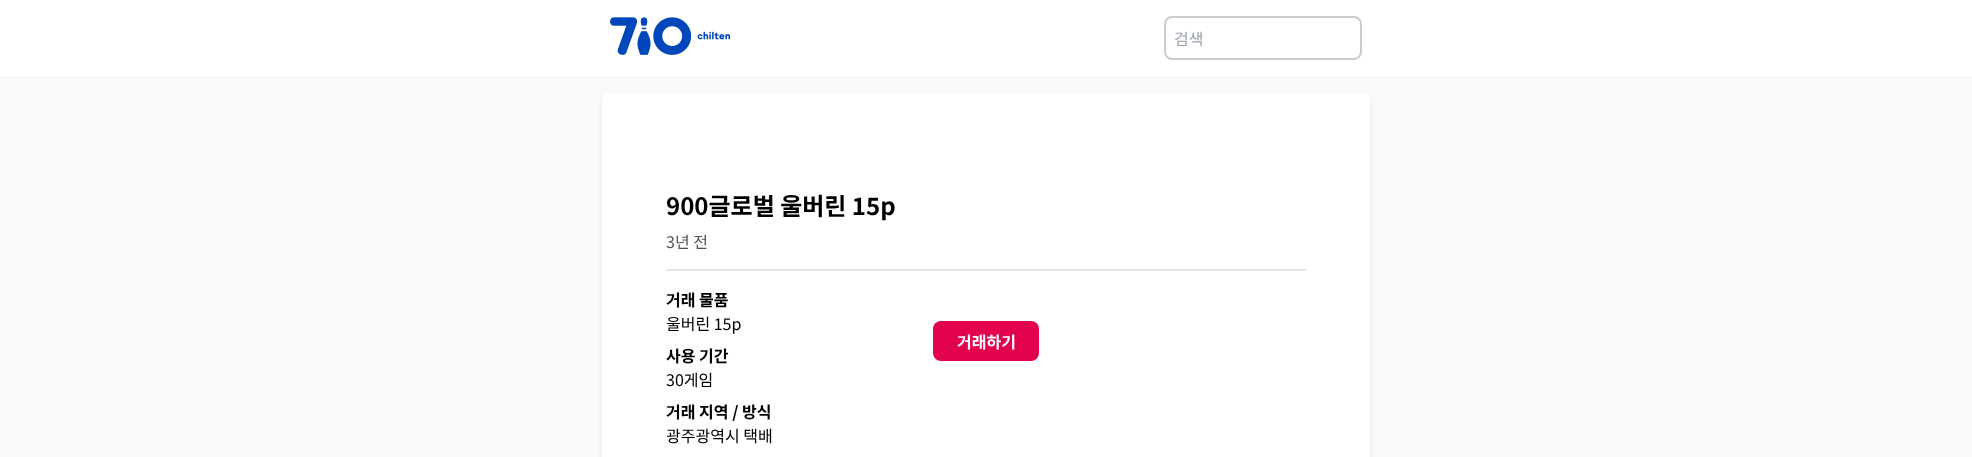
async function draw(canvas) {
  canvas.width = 1972;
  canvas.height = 457;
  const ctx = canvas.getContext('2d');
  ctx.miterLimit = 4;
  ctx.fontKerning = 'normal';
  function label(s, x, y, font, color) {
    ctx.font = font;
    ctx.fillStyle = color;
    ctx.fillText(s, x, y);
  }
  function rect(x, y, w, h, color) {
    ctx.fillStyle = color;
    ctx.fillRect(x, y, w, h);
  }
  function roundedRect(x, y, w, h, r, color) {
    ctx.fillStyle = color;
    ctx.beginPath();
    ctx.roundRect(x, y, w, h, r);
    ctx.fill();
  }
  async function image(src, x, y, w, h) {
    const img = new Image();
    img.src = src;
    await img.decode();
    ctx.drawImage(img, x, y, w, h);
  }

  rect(0, 0, 1972, 457, '#fff');
  rect(0, 76, 1972, 1, '#f5f5f4');
  await image('assets/img1.png', 610, 17, 120, 38);
  ctx.beginPath();
  ctx.roundRect(1165, 17, 196, 42, 7);
  ctx.strokeStyle = '#ccc';
  ctx.lineWidth = 2;
  ctx.stroke();
  label('검색', 1174, 45, '16px Noto Sans KR', '#9ca3af');
  rect(0, 77, 1972, 380, '#f8fafc');
  ctx.fillStyle = '#0000001a';
  ctx.filter = 'blur(3px)';
  ctx.beginPath();
  ctx.roundRect(603, 98, 766, 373, 5);
  ctx.fill();
  ctx.filter = 'none';
  roundedRect(602, 93, 768, 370, 6, '#fff');
  rect(666, 269, 640, 2, '#e7e5e4');
  label('900글로벌 울버린 15p', 666, 215, 'bold 24px Noto Sans KR', '#000');
  label('3년 전', 666, 248, '16px Noto Sans KR', '#57534e');
  label('거래 물품', 666, 306, 'bold 16px Noto Sans KR', '#000');
  label('울버린 15p', 666, 330, '16px Noto Sans KR', '#000');
  label('사용 기간', 666, 362, 'bold 16px Noto Sans KR', '#000');
  label('30게임', 666, 386, '16px Noto Sans KR', '#000');
  label('거래 지역 / 방식', 666, 418, 'bold 16px Noto Sans KR', '#000');
  label('광주광역시 택배', 666, 442, '16px Noto Sans KR', '#000');
  roundedRect(933, 321, 106, 40, 8, '#e30250');
  label('거래하기', 957, 348, 'bold 16px Noto Sans KR', '#fff');
}

draw(document.querySelector('canvas'));
